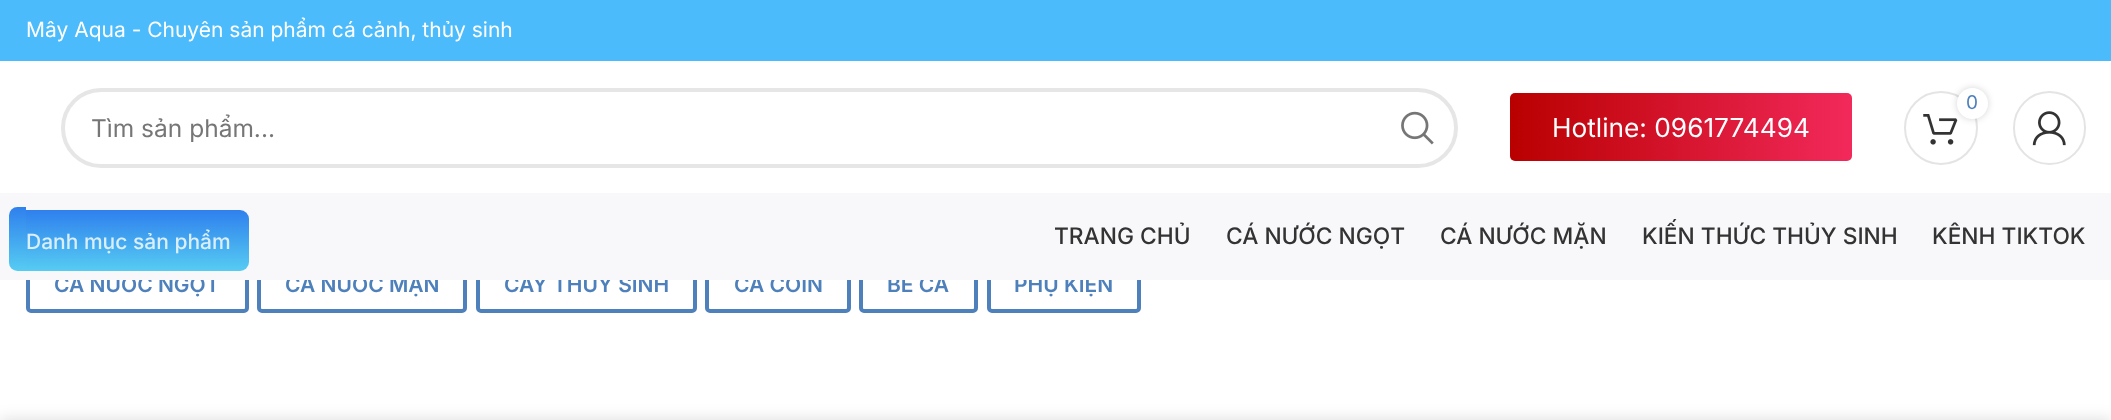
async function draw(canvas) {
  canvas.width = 2111;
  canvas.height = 420;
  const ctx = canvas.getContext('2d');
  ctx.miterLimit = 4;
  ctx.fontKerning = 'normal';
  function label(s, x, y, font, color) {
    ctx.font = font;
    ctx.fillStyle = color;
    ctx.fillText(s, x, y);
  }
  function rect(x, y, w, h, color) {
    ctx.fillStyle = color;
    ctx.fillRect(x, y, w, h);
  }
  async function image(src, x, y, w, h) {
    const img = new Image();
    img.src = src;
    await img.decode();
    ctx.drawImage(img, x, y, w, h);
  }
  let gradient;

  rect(0, 0, 2111, 420, '#fff');
  rect(0, 0, 2111, 61, '#4bbbfb');
  label('Mây Aqua - Chuyên sản phẩm cá cảnh, thủy sinh', 26, 37, '21px Inter', '#fff');
  ctx.beginPath();
  ctx.roundRect(63, 90, 1393, 76, 38);
  ctx.strokeStyle = '#e6e6e6';
  ctx.lineWidth = 4;
  ctx.stroke();
  label('Tìm sản phẩm...', 91, 137, '24.5px Inter', '#767676');
  await image('assets/img1.png', 1401, 111, 33, 34);
  ctx.beginPath();
  ctx.arc(1941, 128, 36, 0, 2 * Math.PI);
  ctx.strokeStyle = '#e4e4e4';
  ctx.lineWidth = 2;
  ctx.stroke();
  await image('assets/img2.png', 1923, 114, 35, 31);
  ctx.fillStyle = '#0000002b';
  ctx.filter = 'blur(3.5px)';
  ctx.beginPath();
  ctx.roundRect(1957, 88, 31, 31, 15.5);
  ctx.fill();
  ctx.filter = 'none';
  ctx.fillStyle = '#fff';
  ctx.beginPath();
  ctx.arc(1972.5, 103.5, 15.5, 0, 2 * Math.PI);
  ctx.fill();
  label('0', 1966, 109, '19px Inter', '#4e80bb');
  ctx.beginPath();
  ctx.roundRect(2014, 92, 71, 72, 35.5);
  ctx.stroke();
  await image('assets/img3.png', 2032, 111, 34, 35);
  gradient = ctx.createLinearGradient(1510, 127, 1852, 127);
  gradient.addColorStop(0, '#b90000');
  gradient.addColorStop(1, '#f2295b');
  ctx.fillStyle = gradient;
  ctx.beginPath();
  ctx.roundRect(1510, 93, 342, 68, 5);
  ctx.fill();
  label('Hotline: 0961774494', 1552, 137, '26.25px Inter', '#fff');
  ctx.beginPath();
  ctx.roundRect(28, 259, 219, 52, 3);
  ctx.strokeStyle = '#4e80bb';
  ctx.lineWidth = 4;
  ctx.stroke();
  label('CÁ NƯỚC NGỌT', 54, 292, '600 21px Inter', '#4e80bb');
  ctx.beginPath();
  ctx.roundRect(259, 259, 206, 52, 3);
  ctx.stroke();
  label('CÁ NƯỚC MẶN', 285, 292, '600 21px Inter', '#4e80bb');
  ctx.beginPath();
  ctx.roundRect(478, 259, 217, 52, 3);
  ctx.stroke();
  label('CÂY THỦY SINH', 504, 292, '600 21px Inter', '#4e80bb');
  ctx.beginPath();
  ctx.roundRect(707, 259, 142, 52, 3);
  ctx.stroke();
  label('CÁ COIN', 734, 292, '600 21px Inter', '#4e80bb');
  ctx.beginPath();
  ctx.roundRect(861, 259, 115, 52, 3);
  ctx.stroke();
  label('BỂ CÁ', 887, 292, '600 21px Inter', '#4e80bb');
  ctx.beginPath();
  ctx.roundRect(989, 259, 150, 52, 3);
  ctx.stroke();
  label('PHỤ KIỆN', 1014, 292, '600 21px Inter', '#4e80bb');
  rect(0, 193, 2111, 87, '#f8f8fa');
  gradient = ctx.createLinearGradient(137, 210, 137, 271);
  gradient.addColorStop(0, '#2f80ed');
  gradient.addColorStop(1, '#56ccf2');
  ctx.fillStyle = gradient;
  ctx.beginPath();
  ctx.roundRect(26, 210, 223, 61, [0, 9, 9, 0]);
  ctx.fill();
  label('Danh mục sản phẩm', 26, 249, '500 21px Inter', '#daeefc');
  gradient = ctx.createLinearGradient(17, 207, 18, 271);
  gradient.addColorStop(0, '#2f80ed');
  gradient.addColorStop(1, '#56ccf2');
  ctx.fillStyle = gradient;
  ctx.beginPath();
  ctx.roundRect(9, 207, 17, 64, [8.5, 0, 0, 8.5]);
  ctx.fill();
  label('TRANG CHỦ', 1054, 244, '500 22.75px Inter', '#333');
  label('CÁ NƯỚC NGỌT', 1226, 244, '500 22.75px Inter', '#333');
  label('CÁ NƯỚC MẶN', 1440, 244, '500 22.75px Inter', '#333');
  label('KIẾN THỨC THỦY SINH', 1642, 244, '500 22.75px Inter', '#333');
  label('KÊNH TIKTOK', 1932, 244, '500 22.75px Inter', '#333');
  ctx.fillStyle = '#00000024';
  ctx.filter = 'blur(8px)';
  ctx.beginPath();
  ctx.rect(0, 420, 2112, 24);
  ctx.fill();
  ctx.filter = 'none';
}

draw(document.querySelector('canvas'));
